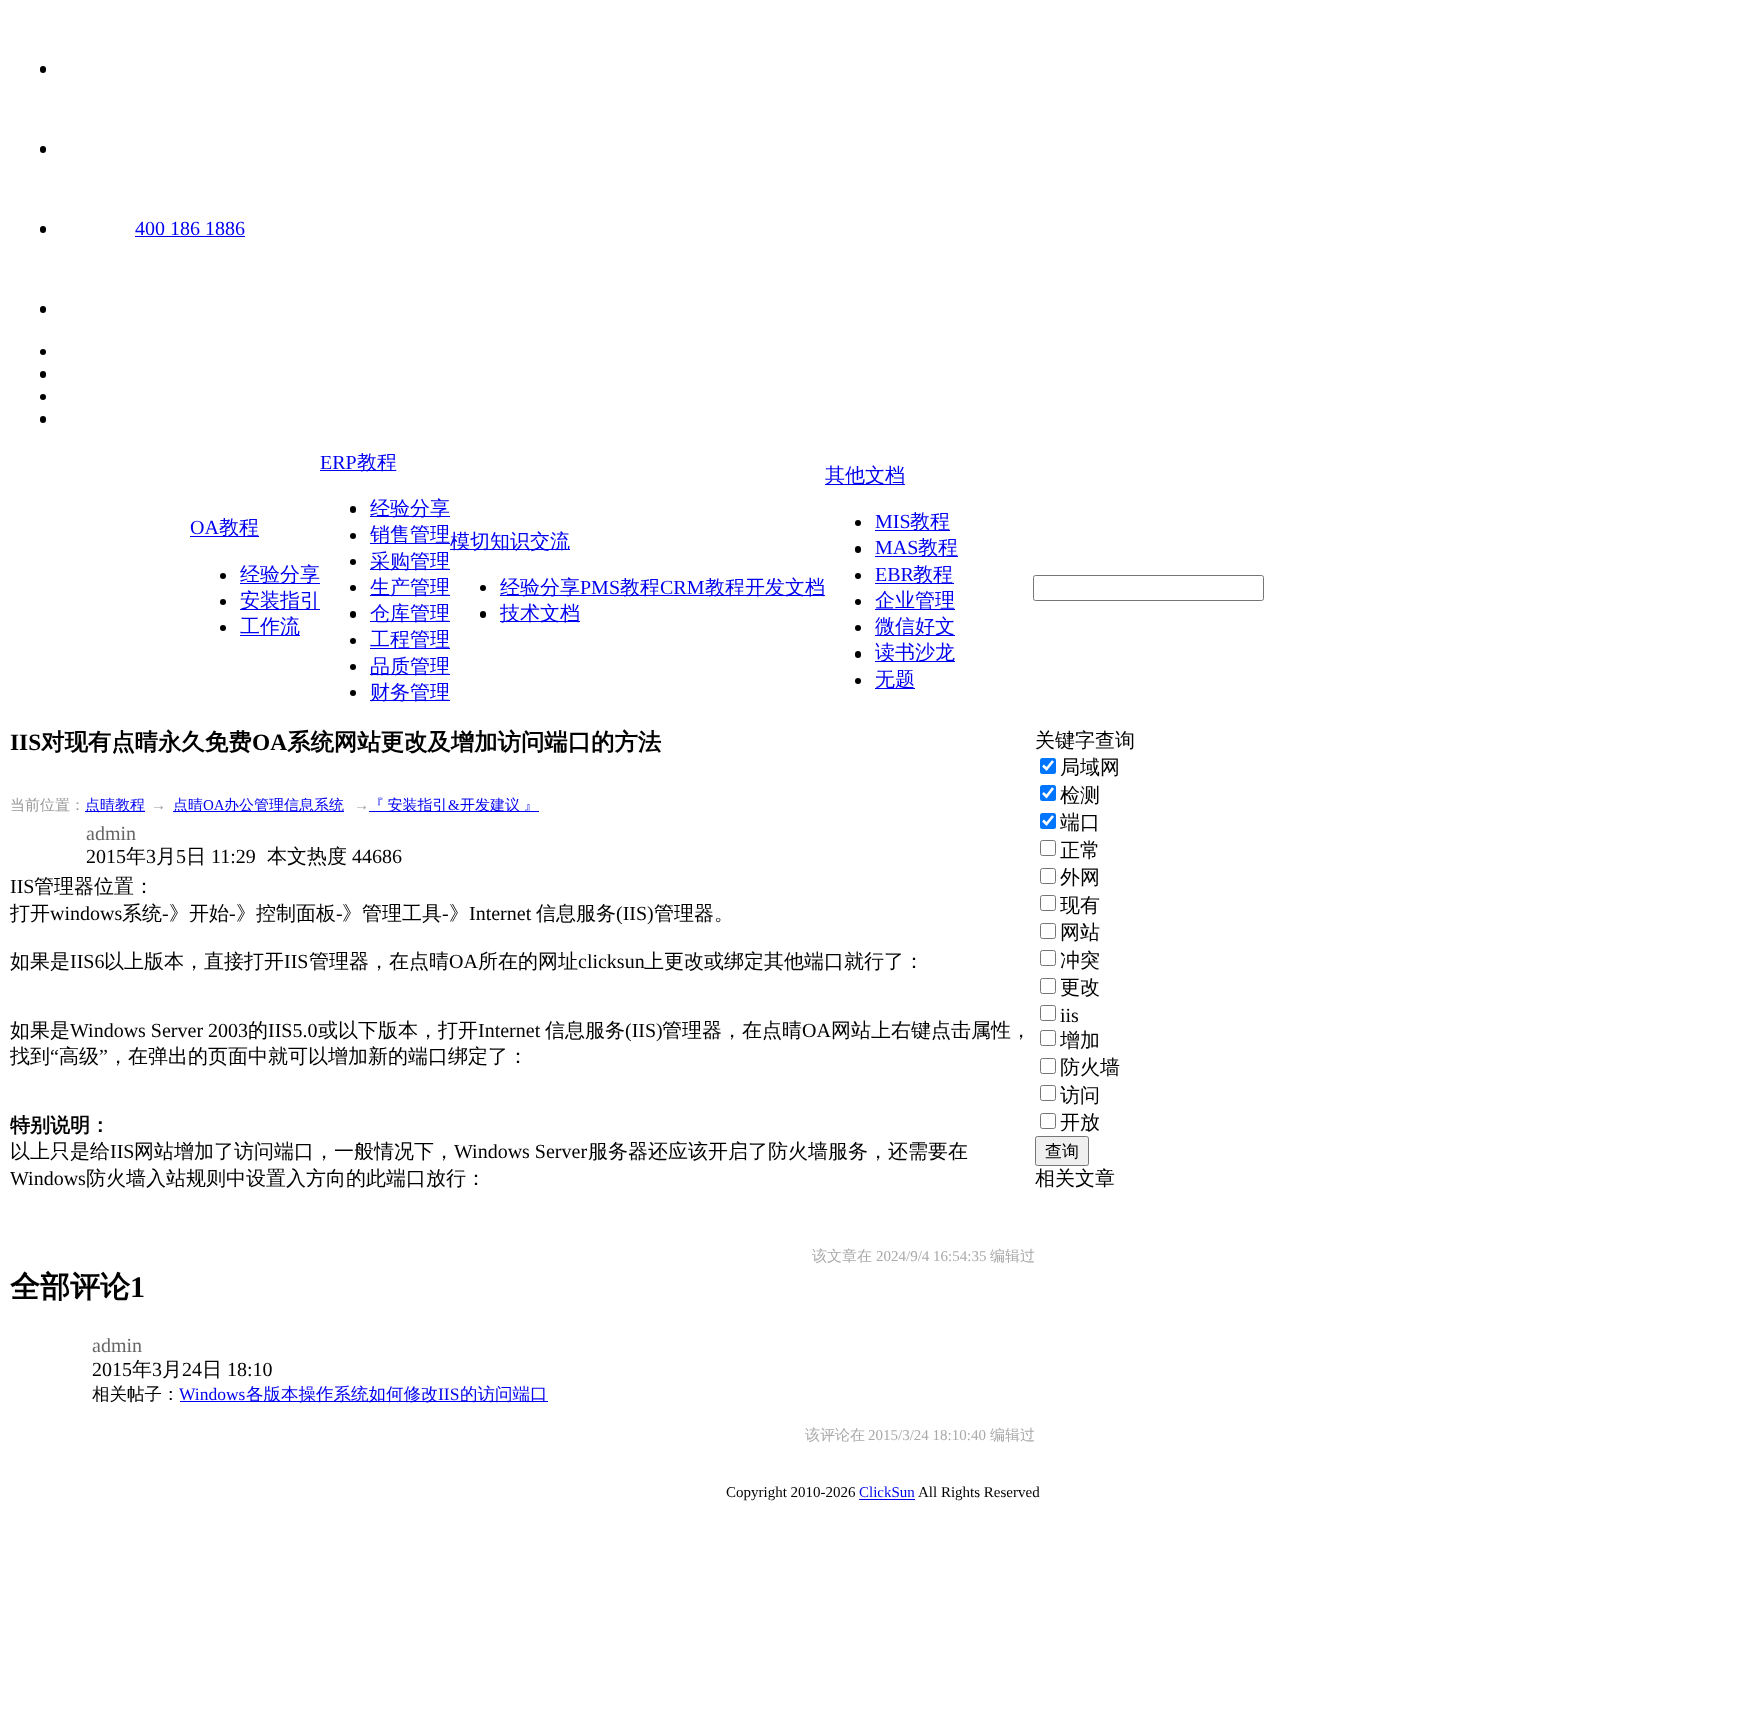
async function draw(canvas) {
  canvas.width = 1764;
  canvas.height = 1732;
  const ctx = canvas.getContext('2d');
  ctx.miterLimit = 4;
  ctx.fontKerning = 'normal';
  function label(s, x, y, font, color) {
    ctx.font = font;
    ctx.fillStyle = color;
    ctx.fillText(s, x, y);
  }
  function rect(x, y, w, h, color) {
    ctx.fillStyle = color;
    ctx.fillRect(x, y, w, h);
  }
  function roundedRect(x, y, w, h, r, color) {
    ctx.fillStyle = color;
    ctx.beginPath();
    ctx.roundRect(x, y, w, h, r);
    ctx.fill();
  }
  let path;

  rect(0, 0, 1764, 1732, '#fff');
  roundedRect(40, 66, 6, 7, 3, '#000');
  roundedRect(40, 146, 6, 7, 3, '#000');
  roundedRect(40, 226, 6, 7, 3, '#000');
  label('400 186 1886', 135, 235, '20px Liberation Serif', '#00e');
  rect(135, 236, 110, 1, '#00e');
  roundedRect(40, 306, 6, 7, 3, '#000');
  ctx.beginPath();
  ctx.arc(43, 352, 3, 0, 2 * Math.PI);
  ctx.fill();
  roundedRect(40, 371, 6, 7, 3, '#000');
  ctx.beginPath();
  ctx.arc(43, 397, 3, 0, 2 * Math.PI);
  ctx.fill();
  roundedRect(40, 416, 6, 7, 3, '#000');
  label('OA', 190, 534, '20px Liberation Serif', '#00e');
  rect(190, 536, 69, 1, '#00e');
  label('教程', 219, 534, '500 20px WenQuanYi Zen Hei', '#00e');
  ctx.fillStyle = '#000';
  ctx.beginPath();
  ctx.arc(223, 576, 3, 0, 2 * Math.PI);
  ctx.fill();
  rect(240, 583, 80, 1, '#00e');
  label('经验分享', 240, 581, '500 20px WenQuanYi Zen Hei', '#00e');
  ctx.fillStyle = '#000';
  ctx.beginPath();
  ctx.arc(223, 602, 3, 0, 2 * Math.PI);
  ctx.fill();
  rect(240, 609, 80, 1, '#00e');
  label('安装指引', 240, 607, '500 20px WenQuanYi Zen Hei', '#00e');
  ctx.fillStyle = '#000';
  ctx.beginPath();
  ctx.arc(223, 628, 3, 0, 2 * Math.PI);
  ctx.fill();
  rect(240, 635, 60, 1, '#00e');
  label('工作流', 240, 633, '500 20px WenQuanYi Zen Hei', '#00e');
  label('ERP', 320, 469, '20px Liberation Serif', '#00e');
  rect(320, 470, 76, 1, '#00e');
  label('教程', 357, 469, '500 20px WenQuanYi Zen Hei', '#00e');
  roundedRect(350, 506, 6, 7, 3, '#000');
  rect(370, 516, 80, 1, '#00e');
  label('经验分享', 370, 515, '500 20px WenQuanYi Zen Hei', '#00e');
  ctx.fillStyle = '#000';
  ctx.beginPath();
  ctx.arc(353, 536, 3, 0, 2 * Math.PI);
  ctx.fill();
  rect(370, 543, 80, 1, '#00e');
  label('销售管理', 370, 541, '500 20px WenQuanYi Zen Hei', '#00e');
  ctx.fillStyle = '#000';
  ctx.beginPath();
  ctx.arc(353, 562, 3, 0, 2 * Math.PI);
  ctx.fill();
  rect(370, 569, 80, 1, '#00e');
  label('采购管理', 370, 568, '500 20px WenQuanYi Zen Hei', '#00e');
  ctx.fillStyle = '#000';
  ctx.beginPath();
  ctx.arc(353, 588, 3, 0, 2 * Math.PI);
  ctx.fill();
  rect(370, 595, 80, 1, '#00e');
  label('生产管理', 370, 594, '500 20px WenQuanYi Zen Hei', '#00e');
  roundedRect(350, 611, 6, 7, 3, '#000');
  rect(370, 621, 80, 1, '#00e');
  label('仓库管理', 370, 620, '500 20px WenQuanYi Zen Hei', '#00e');
  ctx.fillStyle = '#000';
  ctx.beginPath();
  ctx.arc(353, 641, 3, 0, 2 * Math.PI);
  ctx.fill();
  rect(370, 648, 80, 1, '#00e');
  label('工程管理', 370, 646, '500 20px WenQuanYi Zen Hei', '#00e');
  ctx.fillStyle = '#000';
  ctx.beginPath();
  ctx.arc(353, 667, 3, 0, 2 * Math.PI);
  ctx.fill();
  rect(370, 674, 80, 1, '#00e');
  label('品质管理', 370, 673, '500 20px WenQuanYi Zen Hei', '#00e');
  ctx.fillStyle = '#000';
  ctx.beginPath();
  ctx.arc(353, 693, 3, 0, 2 * Math.PI);
  ctx.fill();
  rect(370, 700, 80, 1, '#00e');
  label('财务管理', 370, 699, '500 20px WenQuanYi Zen Hei', '#00e');
  rect(450, 549, 120, 1, '#00e');
  label('模切知识交流', 450, 548, '500 20px WenQuanYi Zen Hei', '#00e');
  ctx.fillStyle = '#000';
  ctx.beginPath();
  ctx.arc(483, 588, 3, 0, 2 * Math.PI);
  ctx.fill();
  rect(500, 595, 325, 1, '#00e');
  label('经验分享', 500, 594, '500 20px WenQuanYi Zen Hei', '#00e');
  roundedRect(480, 611, 6, 7, 3, '#000');
  rect(500, 621, 80, 1, '#00e');
  label('技术文档', 500, 620, '500 20px WenQuanYi Zen Hei', '#00e');
  label('PMS', 580, 594, '20px Liberation Serif', '#00e');
  label('教程', 620, 594, '500 20px WenQuanYi Zen Hei', '#00e');
  label('CRM', 660, 594, '20px Liberation Serif', '#00e');
  label('教程开发文档', 705, 594, '500 20px WenQuanYi Zen Hei', '#00e');
  rect(825, 484, 80, 1, '#00e');
  label('其他文档', 825, 482, '500 20px WenQuanYi Zen Hei', '#00e');
  ctx.fillStyle = '#000';
  ctx.beginPath();
  ctx.arc(858, 523, 3, 0, 2 * Math.PI);
  ctx.fill();
  label('MIS', 875, 528, '20px Liberation Serif', '#00e');
  rect(875, 530, 75, 1, '#00e');
  label('教程', 910, 528, '500 20px WenQuanYi Zen Hei', '#00e');
  roundedRect(855, 546, 6, 7, 3, '#000');
  label('MAS', 875, 554, '20px Liberation Serif', '#00e');
  rect(875, 556, 83, 1, '#00e');
  label('教程', 918, 554, '500 20px WenQuanYi Zen Hei', '#00e');
  ctx.fillStyle = '#000';
  ctx.beginPath();
  ctx.arc(858, 576, 3, 0, 2 * Math.PI);
  ctx.fill();
  label('EBR', 875, 581, '20px Liberation Serif', '#00e');
  rect(875, 583, 79, 1, '#00e');
  label('教程', 913, 581, '500 20px WenQuanYi Zen Hei', '#00e');
  ctx.fillStyle = '#000';
  ctx.beginPath();
  ctx.arc(858, 602, 3, 0, 2 * Math.PI);
  ctx.fill();
  rect(875, 609, 80, 1, '#00e');
  label('企业管理', 875, 607, '500 20px WenQuanYi Zen Hei', '#00e');
  ctx.fillStyle = '#000';
  ctx.beginPath();
  ctx.arc(858, 628, 3, 0, 2 * Math.PI);
  ctx.fill();
  rect(875, 635, 80, 1, '#00e');
  label('微信好文', 875, 633, '500 20px WenQuanYi Zen Hei', '#00e');
  roundedRect(855, 651, 6, 7, 3, '#000');
  rect(875, 661, 80, 1, '#00e');
  label('读书沙龙', 875, 659, '500 20px WenQuanYi Zen Hei', '#00e');
  ctx.fillStyle = '#000';
  ctx.beginPath();
  ctx.arc(858, 681, 3, 0, 2 * Math.PI);
  ctx.fill();
  rect(875, 688, 40, 1, '#00e');
  label('无题', 875, 686, '500 20px WenQuanYi Zen Hei', '#00e');
  ctx.beginPath();
  ctx.roundRect(1033.5, 575.5, 230, 25, 2);
  ctx.strokeStyle = '#767676';
  ctx.stroke();
  label('IIS', 10, 750, 'bold 23.4px Liberation Serif', '#000');
  label('对现有点晴永久免费', 41, 750, 'bold 23.4px WenQuanYi Zen Hei', '#000');
  label('OA', 252, 750, 'bold 23.4px Liberation Serif', '#000');
  label('系统网站更改及增加访问端口的方法', 287, 750, 'bold 23.4px WenQuanYi Zen Hei', '#000');
  label('当前位置：', 10, 810, '500 15px WenQuanYi Zen Hei', '#999');
  rect(85, 811, 60, 1, '#00e');
  label('点晴教程', 85, 810, '500 15px WenQuanYi Zen Hei', '#00e');
  label('→', 151, 810, '15px Liberation Serif', '#999');
  rect(173, 811, 171, 1, '#00e');
  label('点晴', 173, 810, '500 15px WenQuanYi Zen Hei', '#00e');
  label('OA', 203, 810, '15px Liberation Serif', '#00e');
  label('办公管理信息系统', 224, 810, '500 15px WenQuanYi Zen Hei', '#00e');
  label('→', 354, 810, '15px Liberation Serif', '#999');
  rect(369, 811, 170, 1, '#00e');
  ctx.wordSpacing = '-1px';
  label('『 安装指引', 369, 810, '500 15px WenQuanYi Zen Hei', '#00e');
  ctx.wordSpacing = '0px';
  label('&', 448, 810, '15px Liberation Serif', '#00e');
  ctx.wordSpacing = '-1px';
  label('开发建议 』', 460, 810, '500 15px WenQuanYi Zen Hei', '#00e');
  ctx.wordSpacing = '0px';
  label('admin', 86, 840, '20px Liberation Serif', '#666');
  label('2015', 86, 863, '20px Liberation Serif', '#000');
  label('年', 126, 863, '500 20px WenQuanYi Zen Hei', '#000');
  label('3', 146, 863, '20px Liberation Serif', '#000');
  label('月', 156, 863, '500 20px WenQuanYi Zen Hei', '#000');
  label('5', 176, 863, '20px Liberation Serif', '#000');
  label('日', 186, 863, '500 20px WenQuanYi Zen Hei', '#000');
  label('11:29', 211, 863, '20px Liberation Serif', '#000');
  label('本文热度', 267, 863, '500 20px WenQuanYi Zen Hei', '#000');
  label('44686', 352, 863, '20px Liberation Serif', '#000');
  label('IIS', 10, 893, '20px Liberation Serif', '#000');
  label('管理器位置：', 34, 893, '500 20px WenQuanYi Zen Hei', '#000');
  label('打开', 10, 920, '500 20px WenQuanYi Zen Hei', '#000');
  label('windows', 50, 920, '20px Liberation Serif', '#000');
  label('系统', 122, 920, '500 20px WenQuanYi Zen Hei', '#000');
  label('-', 162, 920, '20px Liberation Serif', '#000');
  label('》开始', 169, 920, '500 20px WenQuanYi Zen Hei', '#000');
  label('-', 229, 920, '20px Liberation Serif', '#000');
  label('》控制面板', 236, 920, '500 20px WenQuanYi Zen Hei', '#000');
  label('-', 336, 920, '20px Liberation Serif', '#000');
  label('》管理工具', 342, 920, '500 20px WenQuanYi Zen Hei', '#000');
  label('-', 442, 920, '20px Liberation Serif', '#000');
  label('》', 449, 920, '500 20px WenQuanYi Zen Hei', '#000');
  label('Internet', 469, 920, '20px Liberation Serif', '#000');
  label('信息服务', 536, 920, '500 20px WenQuanYi Zen Hei', '#000');
  label('(IIS)', 616, 920, '20px Liberation Serif', '#000');
  label('管理器。', 654, 920, '500 20px WenQuanYi Zen Hei', '#000');
  label('如果是', 10, 968, '500 20px WenQuanYi Zen Hei', '#000');
  label('IIS6', 70, 968, '20px Liberation Serif', '#000');
  label('以上版本，直接打开', 104, 968, '500 20px WenQuanYi Zen Hei', '#000');
  label('IIS', 284, 968, '20px Liberation Serif', '#000');
  label('管理器，在点晴', 309, 968, '500 20px WenQuanYi Zen Hei', '#000');
  label('OA', 449, 968, '20px Liberation Serif', '#000');
  label('所在的网址', 478, 968, '500 20px WenQuanYi Zen Hei', '#000');
  label('clicksun', 578, 968, '20px Liberation Serif', '#000');
  label('上更改或绑定其他端口就行了：', 644, 968, '500 20px WenQuanYi Zen Hei', '#000');
  label('如果是', 10, 1037, '500 20px WenQuanYi Zen Hei', '#000');
  label('Windows Server 2003', 70, 1037, '20px Liberation Serif', '#000');
  label('的', 248, 1037, '500 20px WenQuanYi Zen Hei', '#000');
  label('IIS5.0', 268, 1037, '20px Liberation Serif', '#000');
  label('或以下版本，打开', 318, 1037, '500 20px WenQuanYi Zen Hei', '#000');
  label('Internet', 478, 1037, '20px Liberation Serif', '#000');
  label('信息服务', 545, 1037, '500 20px WenQuanYi Zen Hei', '#000');
  label('(IIS)', 625, 1037, '20px Liberation Serif', '#000');
  label('管理器，在点晴', 662, 1037, '500 20px WenQuanYi Zen Hei', '#000');
  label('OA', 802, 1037, '20px Liberation Serif', '#000');
  label('网站上右键点击属性，', 831, 1037, '500 20px WenQuanYi Zen Hei', '#000');
  label('找到', 10, 1063, '500 20px WenQuanYi Zen Hei', '#000');
  label('“', 50, 1063, '20px Liberation Serif', '#000');
  label('高级', 59, 1063, '500 20px WenQuanYi Zen Hei', '#000');
  label('”', 99, 1063, '20px Liberation Serif', '#000');
  label('，在弹出的页面中就可以增加新的端口绑定了：', 108, 1063, '500 20px WenQuanYi Zen Hei', '#000');
  label('特别说明：', 10, 1132, 'bold 20px WenQuanYi Zen Hei', '#000');
  label('以上只是给', 10, 1158, '500 20px WenQuanYi Zen Hei', '#000');
  label('IIS', 110, 1158, '20px Liberation Serif', '#000');
  label('网站增加了访问端口，一般情况下，', 134, 1158, '500 20px WenQuanYi Zen Hei', '#000');
  label('Windows Server', 454, 1158, '20px Liberation Serif', '#000');
  label('服务器还应该开启了防火墙服务，还需要在', 588, 1158, '500 20px WenQuanYi Zen Hei', '#000');
  label('Windows', 10, 1185, '20px Liberation Serif', '#000');
  label('防火墙入站规则中设置入方向的此端口放行：', 86, 1185, '500 20px WenQuanYi Zen Hei', '#000');
  label('该文章在', 812, 1261, '500 15px WenQuanYi Zen Hei', '#a9a9a9');
  label('2024/9/4 16:54:35', 876, 1261, '15px Liberation Serif', '#a9a9a9');
  label('编辑过', 990, 1261, '500 15px WenQuanYi Zen Hei', '#a9a9a9');
  label('全部评论', 10, 1297, 'bold 30px WenQuanYi Zen Hei', '#000');
  label('1', 130, 1297, 'bold 30px Liberation Serif', '#000');
  label('admin', 92, 1352, '20px Liberation Serif', '#666');
  label('2015', 92, 1376, '20px Liberation Serif', '#000');
  label('年', 132, 1376, '500 20px WenQuanYi Zen Hei', '#000');
  label('3', 152, 1376, '20px Liberation Serif', '#000');
  label('月', 162, 1376, '500 20px WenQuanYi Zen Hei', '#000');
  label('24', 182, 1376, '20px Liberation Serif', '#000');
  label('日', 202, 1376, '500 20px WenQuanYi Zen Hei', '#000');
  label('18:10', 227, 1376, '20px Liberation Serif', '#000');
  label('相关帖子：', 92, 1400, '500 17.5px WenQuanYi Zen Hei', '#000');
  label('Windows', 179, 1400, '17.5px Liberation Serif', '#00e');
  rect(180, 1401, 368, 1, '#00e');
  label('各版本操作系统如何修改', 246, 1400, '500 17.5px WenQuanYi Zen Hei', '#00e');
  label('IIS', 438, 1400, '17.5px Liberation Serif', '#00e');
  label('的访问端口', 460, 1400, '500 17.5px WenQuanYi Zen Hei', '#00e');
  label('该评论在', 805, 1440, '500 15px WenQuanYi Zen Hei', '#a9a9a9');
  label('2015/3/24 18:10:40', 868, 1440, '15px Liberation Serif', '#a9a9a9');
  label('编辑过', 990, 1440, '500 15px WenQuanYi Zen Hei', '#a9a9a9');
  label('关键字查询', 1035, 747, '500 20px WenQuanYi Zen Hei', '#000');
  roundedRect(1040, 758, 16, 16, 2.5, '#0075ff');
  path = new Path2D('M1043 765.5L1046.5 769L1053 761');
  ctx.strokeStyle = '#fff';
  ctx.lineWidth = 2.6;
  ctx.stroke(path);
  label('局域网', 1060, 774, '500 20px WenQuanYi Zen Hei', '#000');
  roundedRect(1040, 785, 16, 16, 2.5, '#0075ff');
  path = new Path2D('M1043 793L1046.5 796.5L1053 788');
  ctx.stroke(path);
  label('检测', 1060, 802, '500 20px WenQuanYi Zen Hei', '#000');
  roundedRect(1040, 813, 16, 16, 2.5, '#0075ff');
  path = new Path2D('M1043 820.5L1046.5 824L1053 816');
  ctx.stroke(path);
  label('端口', 1060, 829, '500 20px WenQuanYi Zen Hei', '#000');
  ctx.beginPath();
  ctx.roundRect(1040.5, 840.5, 15, 15, 2);
  ctx.strokeStyle = '#767676';
  ctx.lineWidth = 1;
  ctx.stroke();
  label('正常', 1060, 857, '500 20px WenQuanYi Zen Hei', '#000');
  ctx.beginPath();
  ctx.roundRect(1040.5, 868.5, 15, 15, 2);
  ctx.stroke();
  label('外网', 1060, 884, '500 20px WenQuanYi Zen Hei', '#000');
  ctx.beginPath();
  ctx.roundRect(1040.5, 895.5, 15, 15, 2);
  ctx.stroke();
  label('现有', 1060, 912, '500 20px WenQuanYi Zen Hei', '#000');
  ctx.beginPath();
  ctx.roundRect(1040.5, 923.5, 15, 15, 2);
  ctx.stroke();
  label('网站', 1060, 939, '500 20px WenQuanYi Zen Hei', '#000');
  ctx.beginPath();
  ctx.roundRect(1040.5, 950.5, 15, 15, 2);
  ctx.stroke();
  label('冲突', 1060, 967, '500 20px WenQuanYi Zen Hei', '#000');
  ctx.beginPath();
  ctx.roundRect(1040.5, 978.5, 15, 15, 2);
  ctx.stroke();
  label('更改', 1060, 994, '500 20px WenQuanYi Zen Hei', '#000');
  ctx.beginPath();
  ctx.roundRect(1040.5, 1005.5, 15, 15, 2);
  ctx.stroke();
  label('iis', 1060, 1022, '20px Liberation Serif', '#000');
  ctx.beginPath();
  ctx.roundRect(1040.5, 1030.5, 15, 15, 2);
  ctx.stroke();
  label('增加', 1060, 1047, '500 20px WenQuanYi Zen Hei', '#000');
  ctx.beginPath();
  ctx.roundRect(1040.5, 1058.5, 15, 15, 2);
  ctx.stroke();
  label('防火墙', 1060, 1074, '500 20px WenQuanYi Zen Hei', '#000');
  ctx.beginPath();
  ctx.roundRect(1040.5, 1085.5, 15, 15, 2);
  ctx.stroke();
  label('访问', 1060, 1102, '500 20px WenQuanYi Zen Hei', '#000');
  ctx.beginPath();
  ctx.roundRect(1040.5, 1113.5, 15, 15, 2);
  ctx.stroke();
  label('开放', 1060, 1129, '500 20px WenQuanYi Zen Hei', '#000');
  ctx.fillStyle = '#efefef';
  ctx.beginPath();
  ctx.roundRect(1035.5, 1136.5, 53, 29, 2);
  ctx.fill();
  ctx.stroke();
  label('查询', 1045, 1157, '500 17px WenQuanYi Zen Hei', '#000');
  label('相关文章', 1035, 1185, '500 20px WenQuanYi Zen Hei', '#000');
  label('Copyright 2010-2026', 726, 1497, '15px Liberation Serif', '#000');
  label('ClickSun', 859, 1497, '15px Liberation Serif', '#00e');
  rect(859, 1499, 56, 1, '#00e');
  label('All Rights Reserved', 918, 1497, '15px Liberation Serif', '#000');
}

draw(document.querySelector('canvas'));
